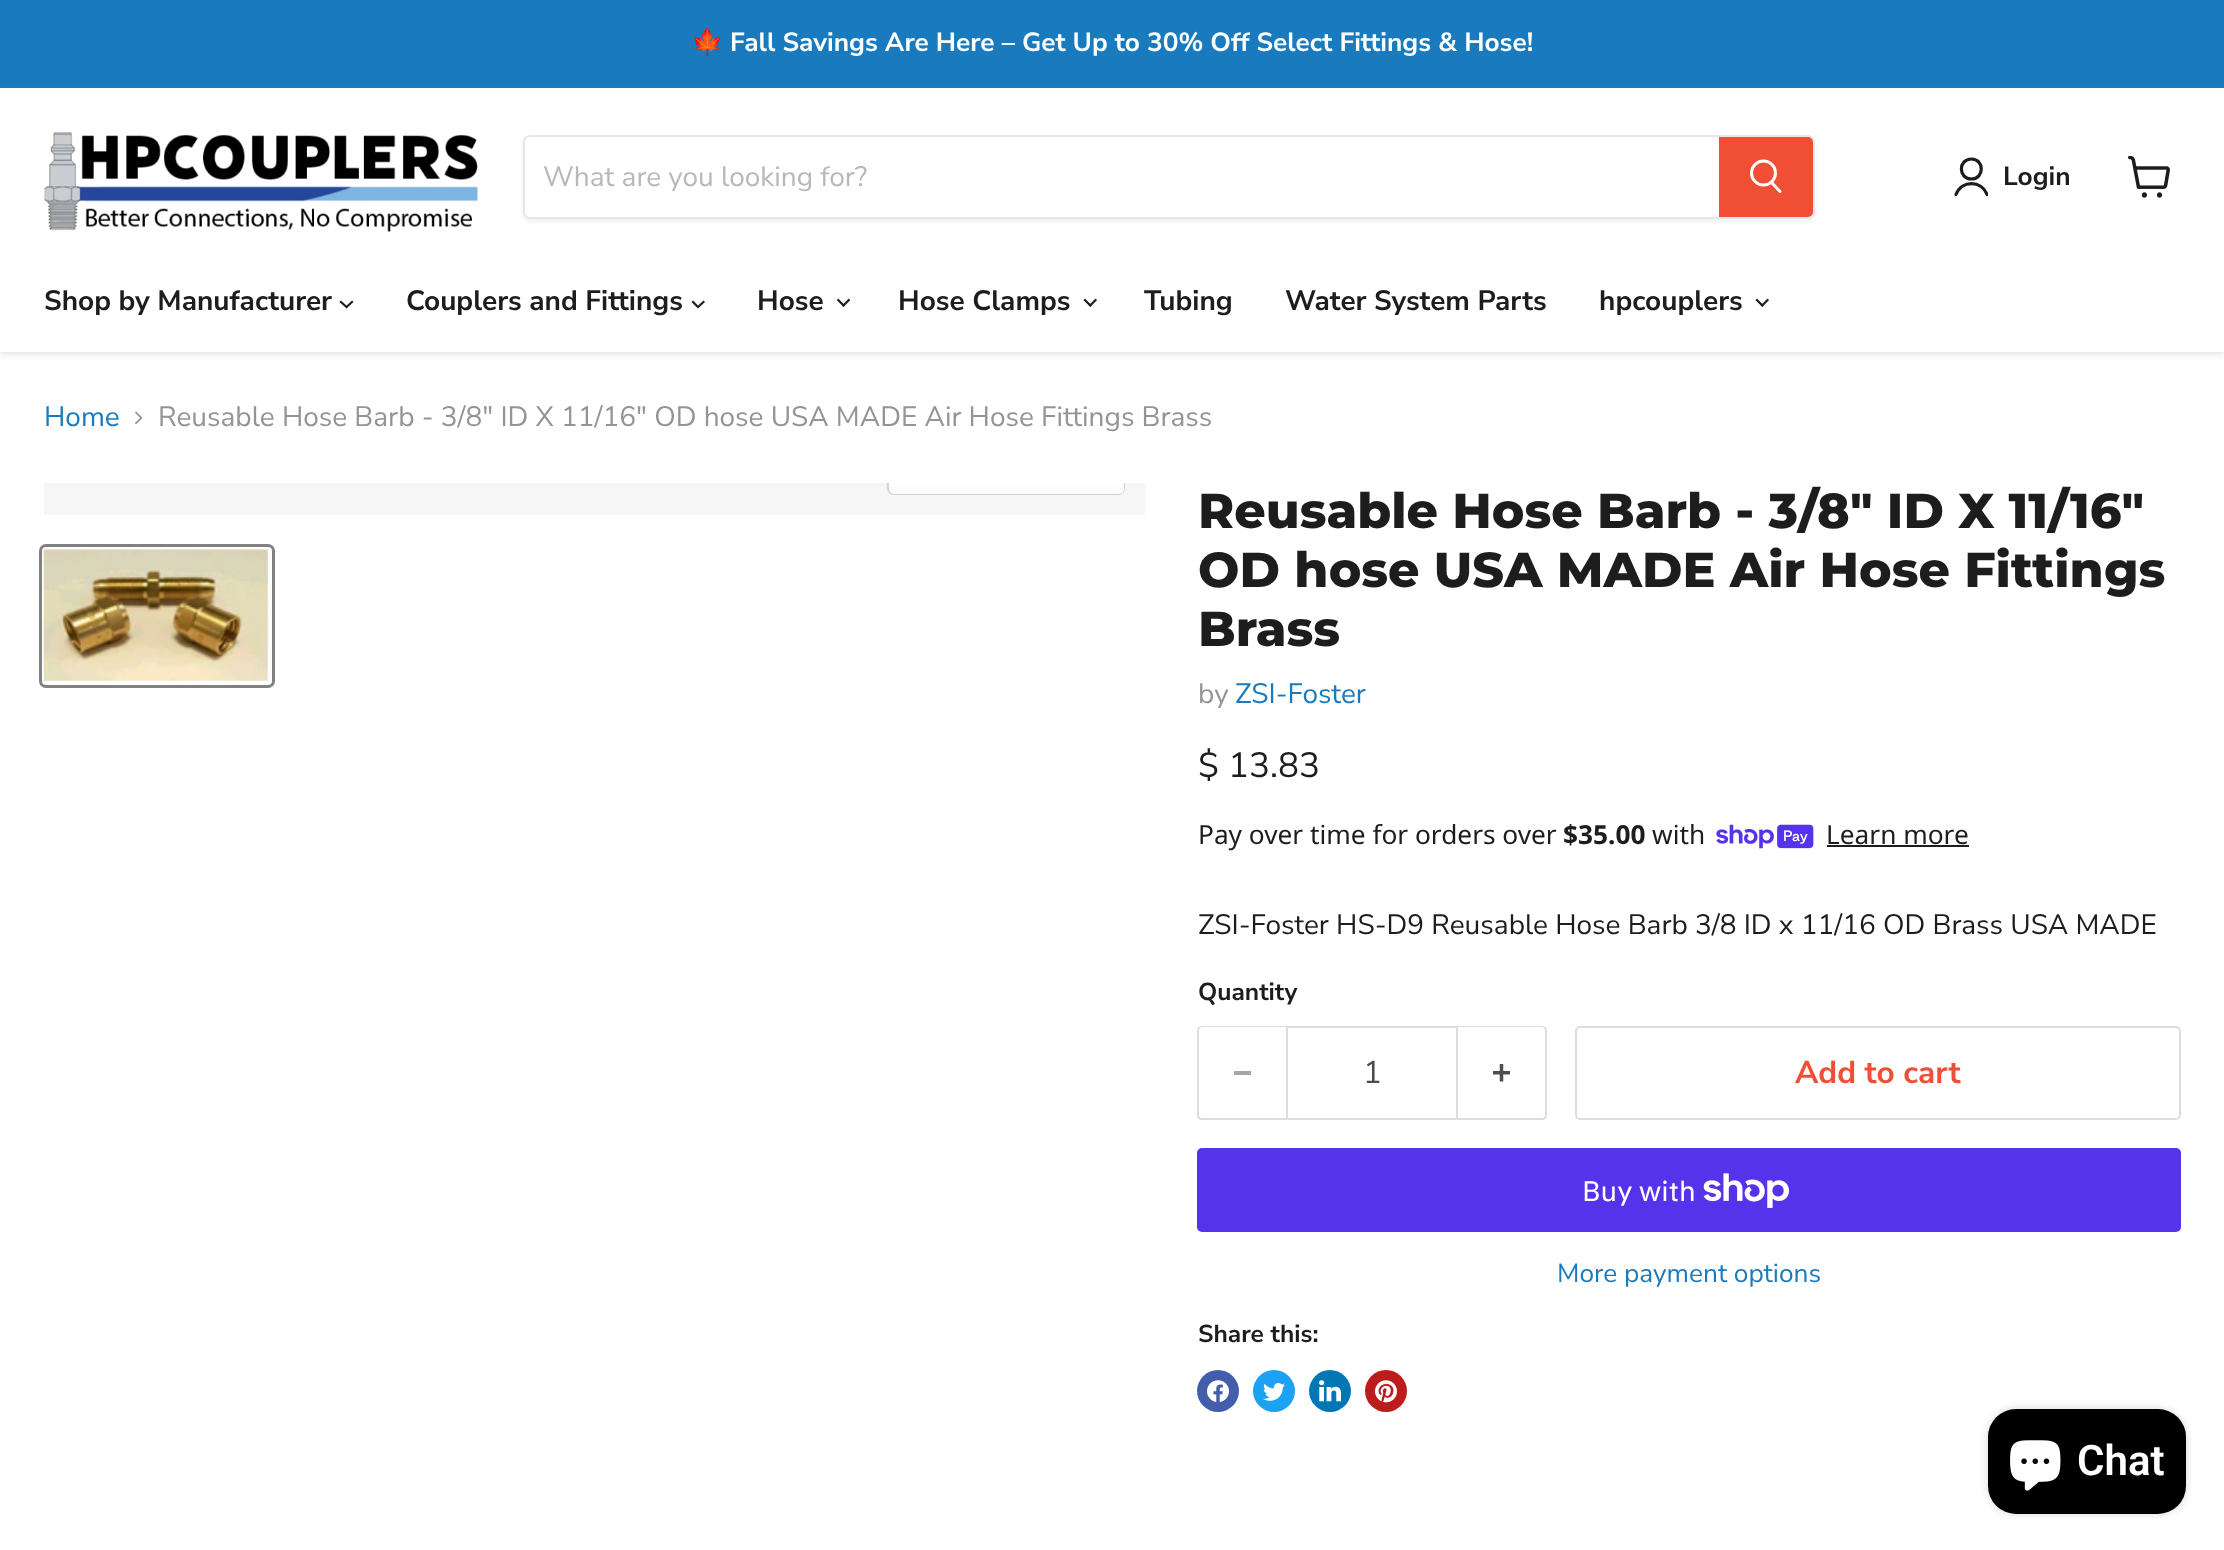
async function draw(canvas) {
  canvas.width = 2224;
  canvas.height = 1550;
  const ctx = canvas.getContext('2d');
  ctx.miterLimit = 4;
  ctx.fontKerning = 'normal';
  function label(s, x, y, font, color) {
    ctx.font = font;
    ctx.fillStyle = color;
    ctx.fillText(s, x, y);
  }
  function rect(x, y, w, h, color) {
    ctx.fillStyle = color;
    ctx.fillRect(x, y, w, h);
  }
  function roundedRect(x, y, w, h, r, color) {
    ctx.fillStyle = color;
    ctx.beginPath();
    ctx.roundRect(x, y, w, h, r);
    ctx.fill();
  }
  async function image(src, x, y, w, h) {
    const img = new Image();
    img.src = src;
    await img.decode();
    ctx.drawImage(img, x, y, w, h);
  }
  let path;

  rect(0, 0, 2224, 1550, '#fff');
  rect(0, 0, 2224, 88, '#197bbd');
  label('🍁', 691, 51, 'bold 26.25px Noto Color Emoji', '#fff');
  label('Fall Savings Are Here – Get Up to 30% Off Select Fittings & Hose!', 730, 51, 'bold 26.25px Nunito Sans', '#fff');
  ctx.fillStyle = '#80808040';
  ctx.filter = 'blur(3.5px)';
  ctx.beginPath();
  ctx.rect(0, 89, 2224, 265);
  ctx.fill();
  ctx.filter = 'none';
  rect(0, 88, 2224, 264, '#fff');
  await image('assets/img1.png', 44, 132, 434, 100);
  ctx.save();
  path = new Path2D('M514 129H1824V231H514ZM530 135H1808C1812 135 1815 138 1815 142V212C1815 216 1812 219 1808 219H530C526 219 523 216 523 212V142C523 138 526 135 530 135Z');
  ctx.clip(path, 'evenodd');
  ctx.fillStyle = '#8080801c';
  ctx.filter = 'blur(2.5px)';
  ctx.beginPath();
  ctx.roundRect(523, 138, 1292, 84, 7);
  ctx.fill();
  ctx.filter = 'none';
  ctx.restore();
  ctx.beginPath();
  ctx.roundRect(524, 136, 1290, 82, 6);
  ctx.strokeStyle = '#80808033';
  ctx.lineWidth = 2;
  ctx.stroke();
  ctx.beginPath();
  ctx.roundRect(525, 137, 1194, 80, [5, 0, 0, 5]);
  ctx.fill();
  label('What are you looking for?', 543, 186, '28px Nunito Sans', '#b8b8b8');
  ctx.fillStyle = '#f04f36';
  ctx.beginPath();
  ctx.roundRect(1720, 138, 92, 78, [0, 4, 4, 0]);
  ctx.fill();
  ctx.strokeStyle = '#f04f36';
  ctx.stroke();
  path = new Path2D('M1780 191.5L1772 183');
  ctx.strokeStyle = '#fff';
  ctx.lineWidth = 3;
  ctx.lineCap = 'round';
  ctx.stroke(path);
  ctx.beginPath();
  ctx.arc(1763.5, 173, 12, 0, 2 * Math.PI);
  ctx.stroke();
  path = new Path2D('M1971.5 179C1984.5 179 1984.5 159 1971.5 159C1958 159 1958 179 1971.5 179Z');
  ctx.strokeStyle = '#1d1d1d';
  ctx.lineWidth = 3.2;
  ctx.lineJoin = 'round';
  ctx.stroke(path);
  ctx.save();
  ctx.beginPath();
  ctx.rect(1953, 156, 35, 42);
  ctx.clip();
  path = new Path2D('M1987 194.5C1981.5 180 1961.5 180 1956 194.5');
  ctx.stroke(path);
  ctx.restore();
  label('Login', 2003, 185, 'bold 26.25px Nunito Sans', '#1d1d1d');
  await image('assets/img2.png', 2128, 156, 42, 42);
  label('Shop by Manufacturer', 44, 310, 'bold 28px Nunito Sans', '#1d1d1d');
  path = new Path2D('M346.5 307L352 302M346.5 307L341 302');
  ctx.lineWidth = 2.2;
  ctx.lineCap = 'square';
  ctx.lineJoin = 'miter';
  ctx.stroke(path);
  label('Couplers and Fittings', 406, 310, 'bold 28px Nunito Sans', '#1d1d1d');
  path = new Path2D('M698 307L703.5 302M698 307L693 302');
  ctx.stroke(path);
  label('Hose', 757, 310, 'bold 28px Nunito Sans', '#1d1d1d');
  await image('assets/img3.png', 837, 298, 14, 9);
  label('Hose Clamps', 898, 310, 'bold 28px Nunito Sans', '#1d1d1d');
  await image('assets/img4.png', 1083, 298, 14, 9);
  label('Tubing', 1144, 310, 'bold 28px Nunito Sans', '#1d1d1d');
  label('Water System Parts', 1285, 310, 'bold 28px Nunito Sans', '#1d1d1d');
  label('hpcouplers', 1599, 310, 'bold 28px Nunito Sans', '#1d1d1d');
  await image('assets/img4.png', 1755, 298, 14, 9);
  label('Home', 44, 426, '28px Nunito Sans', '#197bbd');
  await image('assets/img5.png', 135, 411, 8, 14);
  label('Reusable Hose Barb - 3/8" ID X 11/16" OD hose USA MADE Air Hose Fittings Brass', 158, 426, '28px Nunito Sans', '#949494');
  rect(44, 483, 1101, 32, '#f6f6f6');
  ctx.save();
  ctx.beginPath();
  ctx.rect(44, 483, 1101, 32);
  ctx.clip();
  ctx.beginPath();
  ctx.roundRect(888, 444, 236, 50, 6);
  ctx.strokeStyle = '#d1d1d1';
  ctx.lineWidth = 2;
  ctx.stroke();
  ctx.restore();
  ctx.fillStyle = '#ffffffe6';
  ctx.beginPath();
  ctx.roundRect(889, 483, 235, 11, [0, 0, 5, 5]);
  ctx.fill();
  ctx.beginPath();
  ctx.roundRect(40.5, 545.5, 233, 141, 5.5);
  ctx.strokeStyle = '#818181';
  ctx.lineWidth = 3;
  ctx.stroke();
  await image('assets/img6.png', 43, 549, 225, 132);
  label('Reusable Hose Barb - 3/8" ID X 11/16"', 1198, 528, '800 49px Montserrat', '#1d1d1d');
  label('OD hose USA MADE Air Hose Fittings', 1198, 587, '800 49px Montserrat', '#1d1d1d');
  label('Brass', 1198, 646, '800 49px Montserrat', '#1d1d1d');
  label('by', 1198, 703, '28px Nunito Sans', '#949494');
  label('ZSI-Foster', 1235, 703, '28px Nunito Sans', '#197bbd');
  label('$ 13.83', 1198, 777, '35px Nunito Sans', '#1d1d1d');
  label('Pay over time for orders over', 1198, 844, '26.25px Noto Sans', '#1d1d1d');
  label('$35.00', 1563, 844, 'bold 26.25px Noto Sans', '#1d1d1d');
  label('with', 1652, 844, '26.25px Noto Sans', '#1d1d1d');
  await image('assets/img7.png', 1716, 824, 98, 25);
  label('Learn more', 1826, 844, '26.25px Noto Sans', '#1d1d1d');
  rect(1827, 845, 142, 2, '#1d1d1d');
  label('ZSI-Foster HS-D9 Reusable Hose Barb 3/8 ID x 11/16 OD Brass USA MADE', 1198, 934, '28px Nunito Sans', '#1d1d1d');
  label('Quantity', 1198, 1000, 'bold 24.5px Nunito Sans', '#1d1d1d');
  ctx.fillStyle = '#ddd';
  path = new Path2D('M1202 1026H1286V1120H1202C1199 1120 1197 1118 1197 1115V1031C1197 1028 1199 1026 1202 1026ZM1202 1027H1286V1118H1202C1200 1118 1199 1117 1199 1115V1031C1199 1029 1200 1027 1202 1027Z');
  ctx.fill(path, 'evenodd');
  rect(1234, 1071, 17, 4, '#a6a6a6');
  ctx.strokeStyle = '#ddd';
  ctx.lineWidth = 2;
  ctx.strokeRect(1287, 1027, 170, 92);
  label('1', 1363, 1083, '31.5px Nunito Sans', '#4d4d4d');
  ctx.fillStyle = '#ddd';
  path = new Path2D('M1458 1026H1542C1545 1026 1547 1028 1547 1031V1115C1547 1118 1545 1120 1542 1120H1458ZM1458 1027H1542C1544 1027 1545 1029 1545 1031V1115C1545 1117 1544 1118 1542 1118H1458Z');
  ctx.fill(path, 'evenodd');
  await image('assets/img8.png', 1493, 1064, 17, 18);
  ctx.beginPath();
  ctx.roundRect(1576, 1027, 604, 92, 4);
  ctx.stroke();
  label('Add to cart', 1795, 1083, 'bold 31.5px Nunito Sans', '#f04f36');
  roundedRect(1197, 1148, 984, 84, 5, '#5433eb');
  label('Buy with', 1582, 1201, '28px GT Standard', '#fff');
  await image('assets/img9.png', 1703, 1173, 86, 35);
  label('More payment options', 1557, 1282, '26.25px Nunito Sans', '#197bbd');
  label('Share this:', 1198, 1342, 'bold 24.5px Nunito Sans', '#1d1d1d');
  ctx.fillStyle = '#425dab';
  ctx.beginPath();
  ctx.arc(1218, 1391, 21, 0, 2 * Math.PI);
  ctx.fill();
  await image('assets/img10.png', 1207, 1380, 22, 22);
  ctx.fillStyle = '#1da1f2';
  ctx.beginPath();
  ctx.arc(1274, 1391, 21, 0, 2 * Math.PI);
  ctx.fill();
  await image('assets/img11.png', 1263, 1383, 22, 18);
  ctx.fillStyle = '#0077b5';
  ctx.beginPath();
  ctx.arc(1330, 1391, 21, 0, 2 * Math.PI);
  ctx.fill();
  await image('assets/img12.png', 1319, 1380, 22, 22);
  ctx.fillStyle = '#bd1c1c';
  ctx.beginPath();
  ctx.arc(1386, 1391, 21, 0, 2 * Math.PI);
  ctx.fill();
  await image('assets/img13.png', 1375, 1380, 22, 23);
  ctx.fillStyle = '#00000026';
  ctx.filter = 'blur(4.5px)';
  ctx.beginPath();
  ctx.roundRect(1988, 1409, 198, 105, 28);
  ctx.fill();
  ctx.filter = 'none';
  roundedRect(1988, 1409, 198, 105, 28, '#000');
  await image('assets/img14.png', 2010, 1440, 51, 51);
  label('Chat', 2077, 1475, '600 42px Roboto', '#fff');
}

draw(document.querySelector('canvas'));
